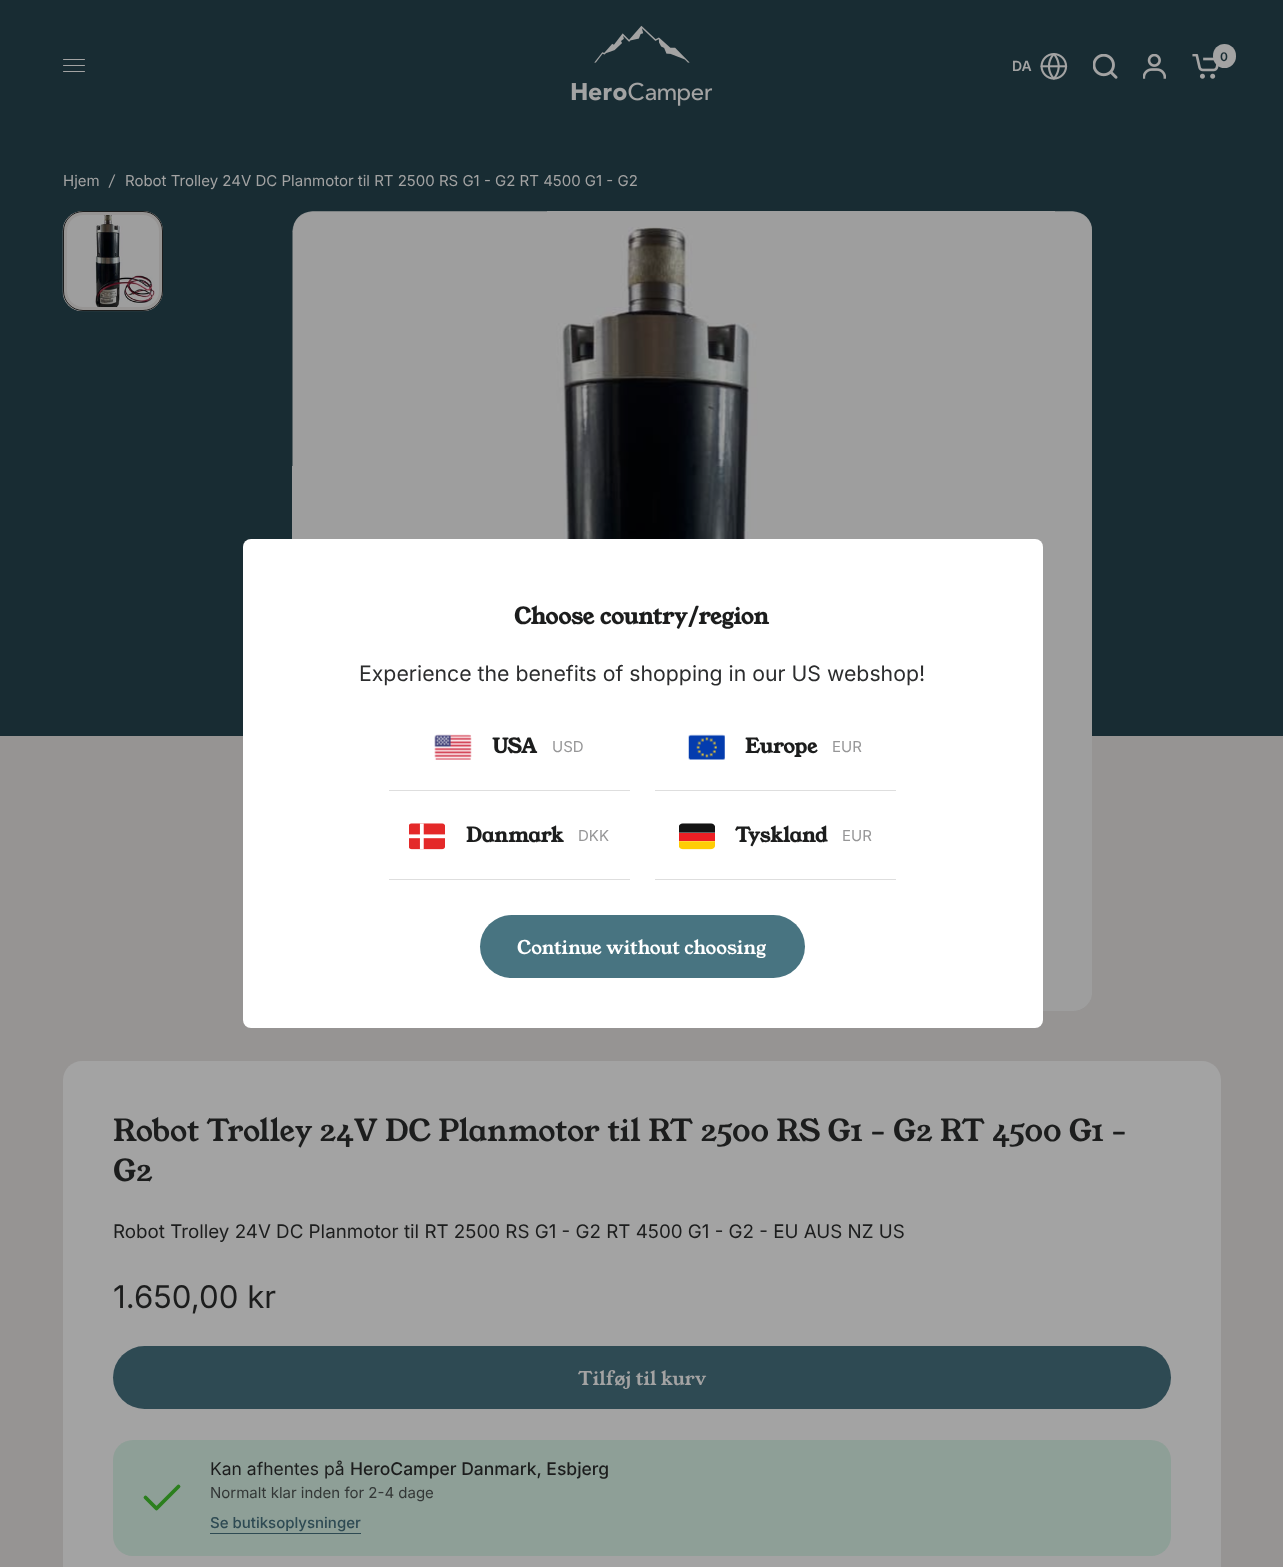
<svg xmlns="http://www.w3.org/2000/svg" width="1283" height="1567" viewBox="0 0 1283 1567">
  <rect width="100%" height="100%" fill="#969493"/>
  <path d="M0 0h1283v736H0z" fill="#182c33"/>
  <rect x="63" y="59" width="22" height="1" rx="0.5" fill="#a3a3a3"/>
  <rect x="63" y="65" width="22" height="1" rx="0.5" fill="#a3a3a3"/>
  <rect x="63" y="71" width="22" height="1" rx="0.5" fill="#a3a3a3"/>
  <image x="571" y="25" width="142" height="81" href="img/1.png"/>
  <image x="1040" y="53" width="28" height="27" href="img/2.png"/>
  <image x="1093" y="54" width="25" height="25" href="img/3.png"/>
  <image x="1143" y="54" width="23" height="25" href="img/4.png"/>
  <image x="1192" y="54" width="27" height="25" href="img/5.png"/>
  <rect x="1213" y="44" width="23" height="24" rx="11.5" fill="#a3a3a3"/>
  <image x="62" y="211" width="101" height="101" href="img/6.png"/>
  <rect x="65" y="213" width="96" height="96" rx="18" fill="none" stroke="#969493" stroke-width="4"/>
  <rect x="63.5" y="211.5" width="99" height="99" rx="19.5" fill="none" stroke="#1c1d1d"/>
  <image x="292" y="211" width="800" height="800" href="img/7.png"/>
  <rect x="63" y="1061" width="1158" height="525" rx="19" fill="#a3a3a3"/>
  <rect x="113" y="1346" width="1058" height="63" rx="31.5" fill="#2e4a53"/>
  <rect x="113" y="1440" width="1058" height="116" rx="20" fill="#8e9f97"/>
  <path d="M178.5 1486.5L156.5 1508.5L145.5 1497.5" fill="none" stroke="#2b7f1d" stroke-width="3.8" stroke-linecap="round" stroke-linejoin="round"/>
  <path d="M210 1533h151v1H210z" fill="#2e4a53"/>
  <rect x="243" y="539" width="800" height="489" rx="8" fill="#fff"/>
  <path d="M389 790h241v1H389z" fill="#dedede"/>
  <image x="434" y="734" width="38" height="26" href="img/8.png"/>
  <path d="M655 790h241v1H655z" fill="#dedede"/>
  <image x="688" y="734" width="37" height="26" href="img/9.png"/>
  <path d="M389 879h241v1H389z" fill="#dedede"/>
  <image x="409" y="823" width="36" height="27" href="img/10.png"/>
  <path d="M655 879h241v1H655z" fill="#dedede"/>
  <image x="679" y="823" width="36" height="27" href="img/11.png"/>
  <rect x="480" y="915" width="325" height="63" rx="31.5" fill="#487481"/>
  <text x="1012" y="71" font-family="Inter" font-size="14" font-weight="600" fill="#a3a3a3">DA</text>
  <text x="1220" y="61" font-family="Inter" font-size="12" font-weight="600" fill="#182c33">0</text>
  <text x="63" y="186" font-family="Inter" font-size="15" fill="#a3a3a3">Hjem</text>
  <text x="109" y="186" font-family="Inter" font-size="15" font-style="italic" fill="#a3a3a3">/</text>
  <text x="125" y="186" font-family="Inter" font-size="15" fill="#a3a3a3">Robot Trolley 24V DC Planmotor til RT 2500 RS G1 - G2 RT 4500 G1 - G2</text>
  <g font-family="Young Serif" font-size="30" fill="#1c1d1d">
    <text x="113" y="1141">Robot Trolley 24V DC Planmotor til RT 2500 RS G1 - G2 RT 4500 G1 -</text>
    <text x="113" y="1181">G2</text>
  </g>
  <text x="113" y="1238" font-family="Inter" font-size="18.75" fill="#1c1d1d">Robot Trolley 24V DC Planmotor til RT 2500 RS G1 - G2 RT 4500 G1 - G2 - EU AUS NZ US</text>
  <text x="113" y="1308" font-family="Inter" font-size="31.25" fill="#1c1d1d">1.650,00 kr</text>
  <text x="578" y="1385" font-family="Young Serif" font-size="18.75" fill="#a3a3a3">Tilføj til kurv</text>
  <text x="210" y="1475" font-family="Inter" font-size="17.5" fill="#1c1d1d">Kan afhentes på</text>
  <text x="350" y="1475" font-family="Inter" font-size="17.5" font-weight="500" fill="#1c1d1d">HeroCamper Danmark, Esbjerg</text>
  <text x="210" y="1498" font-family="Inter" font-size="15" fill="#333736">Normalt klar inden for 2-4 dage</text>
  <text x="210" y="1528" font-family="Inter" font-size="15" font-weight="500" fill="#2e4a53">Se butiksoplysninger</text>
  <text x="514" y="624" font-family="Young Serif" font-size="22.5" font-weight="bold" fill="#1c1d1d">Choose country/region</text>
  <text x="359" y="681" font-family="Inter" font-size="21.25" fill="#2c2d2e">Experience the benefits of shopping in our US webshop!</text>
  <text x="492" y="753" font-family="Young Serif" font-size="20" font-weight="bold" fill="#1c1d1d">USA</text>
  <text x="552" y="752" font-family="Inter" font-size="15" fill="#969697">USD</text>
  <text x="745" y="753" font-family="Young Serif" font-size="20" font-weight="bold" fill="#1c1d1d">Europe</text>
  <text x="832" y="752" font-family="Inter" font-size="15" fill="#969697">EUR</text>
  <text x="466" y="842" font-family="Young Serif" font-size="20" font-weight="bold" fill="#1c1d1d">Danmark</text>
  <text x="578" y="841" font-family="Inter" font-size="15" fill="#969697">DKK</text>
  <text x="735" y="842" font-family="Young Serif" font-size="20" font-weight="bold" fill="#1c1d1d">Tyskland</text>
  <text x="842" y="841" font-family="Inter" font-size="15" fill="#969697">EUR</text>
  <text x="517" y="954" font-family="Young Serif" font-size="18.75" fill="#fff">Continue without choosing</text>
</svg>
